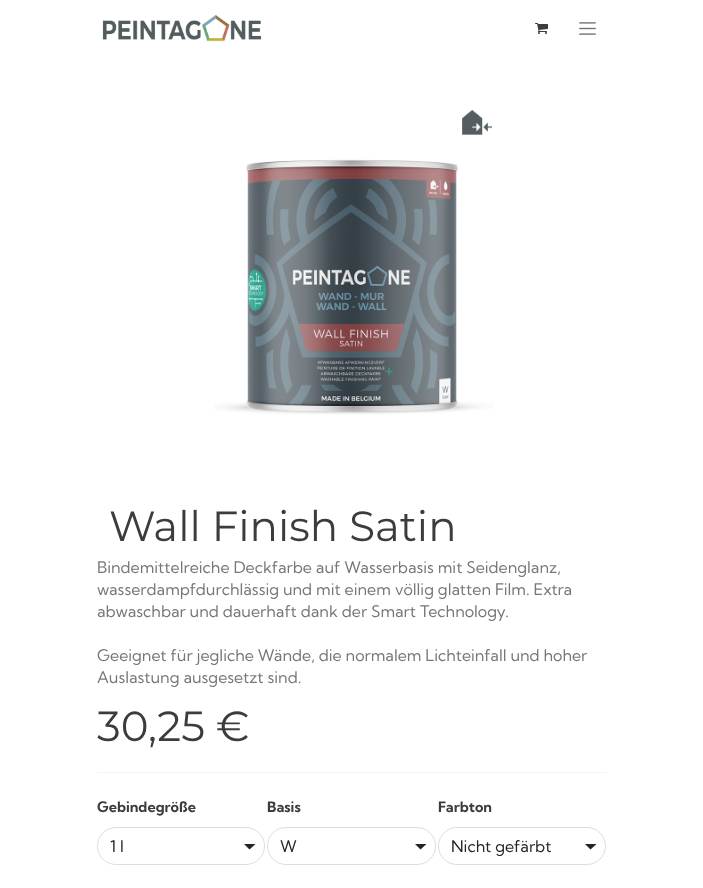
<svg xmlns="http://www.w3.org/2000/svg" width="703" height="888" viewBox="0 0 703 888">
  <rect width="100%" height="100%" fill="#fff"/>
  <image x="102" y="14" width="160" height="28" href="img/1.png"/>
  <image x="535" y="23" width="13" height="11" href="img/2.png"/>
  <image x="579" y="22" width="17" height="13" href="img/3.png"/>
  <image x="462" y="110" width="30" height="25" href="img/4.png"/>
  <image x="214" y="159" width="279" height="256" href="img/5.png"/>
  <path d="M97 772h510v1H97z" fill="#f5f4f1"/>
  <path d="M244 844H255.5L249.5 849.5Z" fill="#212529"/>
  <rect x="97.5" y="827.5" width="167" height="37" rx="18.5" fill="none" stroke="#dededf"/>
  <path d="M415 844H426.5L420.5 849.5Z" fill="#212529"/>
  <rect x="267.5" y="827.5" width="168" height="37" rx="18.5" fill="none" stroke="#dededf"/>
  <path d="M585 844H596.5L590.5 849.5Z" fill="#212529"/>
  <rect x="438.5" y="827.5" width="167" height="37" rx="18.5" fill="none" stroke="#dededf"/>
  <text x="109" y="541" font-family="Montserrat" font-size="42" fill="#3c3c3c">Wall Finish Satin</text>
  <g font-family="Kumbh Sans" font-size="16" fill="#777">
    <text x="97" y="573">Bindemittelreiche Deckfarbe auf Wasserbasis mit Seidenglanz,</text>
    <text x="97" y="595">wasserdampfdurchlässig und mit einem völlig glatten Film. Extra</text>
    <text x="97" y="617">abwaschbar und dauerhaft dank der Smart Technology.</text>
    <text x="97" y="661">Geeignet für jegliche Wände, die normalem Lichteinfall und hoher</text>
    <text x="97" y="683">Auslastung ausgesetzt sind.</text>
  </g>
  <text x="97" y="741" font-family="Montserrat" font-size="42" fill="#3c3c3c">30,25 €</text>
  <text x="97" y="812" font-family="Kumbh Sans" font-size="14.5" font-weight="bold" fill="#3c3c3c">Gebindegröße</text>
  <text x="110" y="852" font-family="Kumbh Sans" font-size="16" fill="#212529">1 l</text>
  <text x="267" y="812" font-family="Kumbh Sans" font-size="14.5" font-weight="bold" fill="#3c3c3c">Basis</text>
  <text x="280" y="852" font-family="Kumbh Sans" font-size="16" fill="#212529">W</text>
  <text x="438" y="812" font-family="Kumbh Sans" font-size="14.5" font-weight="bold" fill="#3c3c3c">Farbton</text>
  <text x="451" y="852" font-family="Kumbh Sans" font-size="16" fill="#212529">Nicht gefärbt</text>
</svg>
